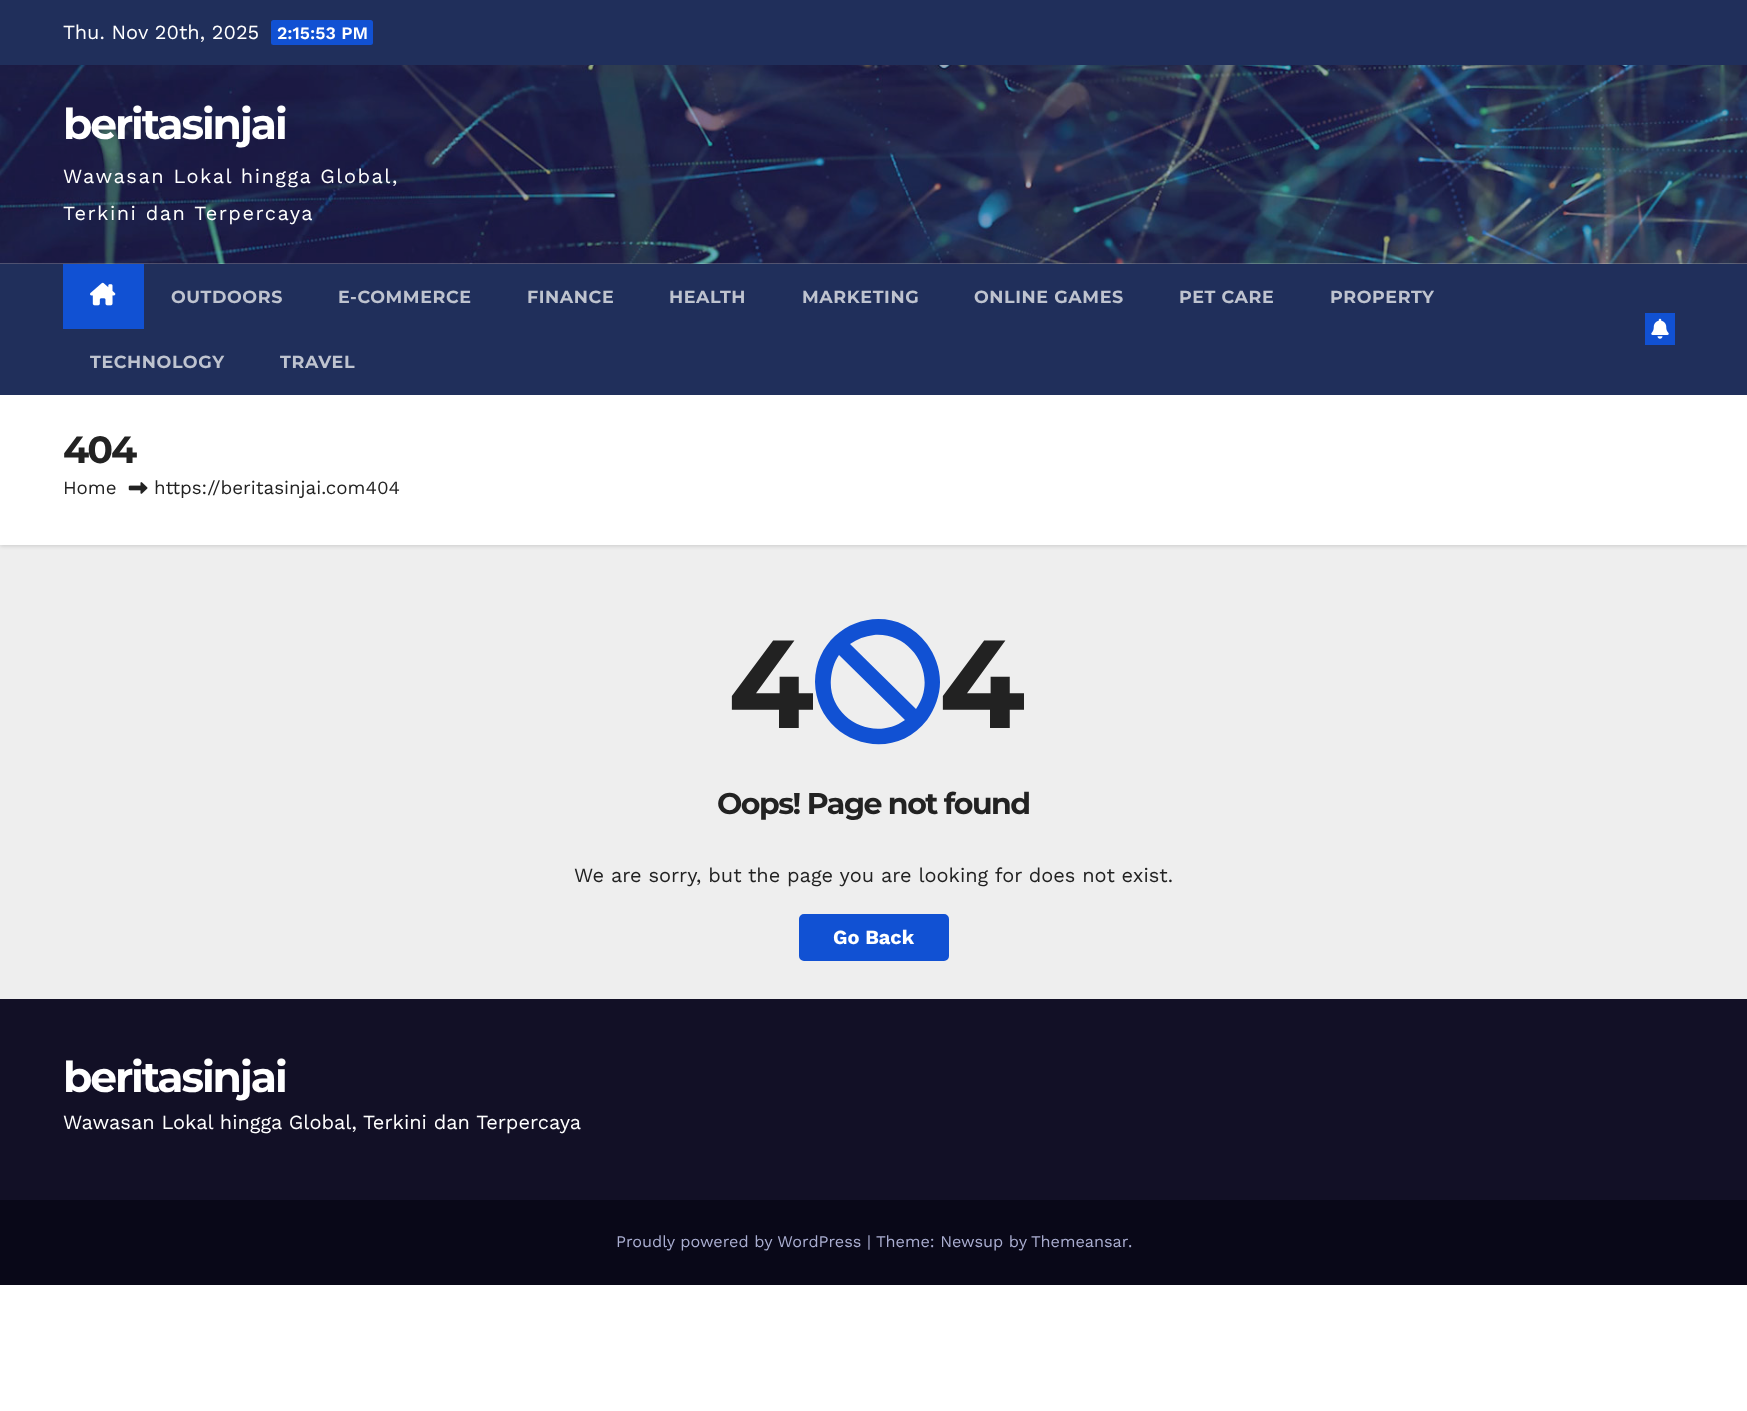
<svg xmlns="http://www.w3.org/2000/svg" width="1747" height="1411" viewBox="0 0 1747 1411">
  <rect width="100%" height="100%" fill="#fff"/>
  <path d="M0 263h1747v736H0z" fill="#eee"/>
  <path d="M0 0h1747v65H0z" fill="#202f5b"/>
  <rect x="271" y="20" width="102" height="25" rx="2.5" fill="#1151d3"/>
  <image x="0" y="65" width="1747" height="199" href="img/1.png"/>
  <path d="M0 396h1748v150H0z" fill="#00000026" filter="blur(2px)"/>
  <path d="M0 264h1747v131H0z" fill="#202f5b"/>
  <path d="M63 264h81v65H63z" fill="#1151d3"/>
  <image x="90" y="282" width="26" height="24" href="img/2.png"/>
  <path d="M1645 313h30v32H1645z" fill="#1151d3"/>
  <image x="1651" y="318" width="18" height="21" href="img/3.png"/>
  <path d="M0 395h1747v150H0z" fill="#fff"/>
  <image x="128" y="482" width="20" height="12" href="img/4.png"/>
  <path d="M905 720L839 655C834 662 832 670 831 678C827 718 873 743 905 720ZM916 709C939 677 913 632 874 635C865 636 857 639 850 644ZM815 682C816 622 891 596 927 644C935 655 940 668 940 682C940 695 935 709 927 720C891 767 816 741 815 682Z" fill="#1151d3"/>
  <rect x="800.5" y="915.5" width="147" height="44" rx="3.5" fill="#1151d3" stroke="#1151d3" stroke-width="3"/>
  <path d="M0 999h1747v201H0z" fill="#121026"/>
  <path d="M0 1200h1747v85H0z" fill="#090818"/>
  <text x="63" y="39" font-family="Work Sans" font-size="20" fill="#fff">Thu. Nov 20th, 2025</text>
  <text x="277" y="39" font-family="Work Sans" font-size="17.5" font-weight="600" fill="#fff">2:15:53 PM</text>
  <text x="63" y="139" font-family="Montserrat" font-size="42.5" font-weight="bold" letter-spacing="-2.1" fill="#fff">beritasinjai</text>
  <g font-family="Work Sans" font-size="20" letter-spacing="1.5" fill="#fff">
    <text x="63" y="183">Wawasan Lokal hingga Global,</text>
    <text x="63" y="220">Terkini dan Terpercaya</text>
  </g>
  <g font-family="Montserrat" font-size="17.5" font-weight="bold" letter-spacing="0.6" fill="#bec3cf">
    <text x="171" y="303">OUTDOORS</text>
    <text x="338" y="303">E-COMMERCE</text>
    <text x="527" y="303">FINANCE</text>
    <text x="669" y="303">HEALTH</text>
    <text x="802" y="303">MARKETING</text>
    <text x="974" y="303">ONLINE GAMES</text>
    <text x="1179" y="303">PET CARE</text>
    <text x="1330" y="303">PROPERTY</text>
    <text x="90" y="368">TECHNOLOGY</text>
    <text x="280" y="368">TRAVEL</text>
  </g>
  <text x="63" y="463" font-family="Montserrat" font-size="38" font-weight="bold" letter-spacing="-2" fill="#222">404</text>
  <g font-family="Work Sans" font-size="18.75" fill="#222">
    <text x="63" y="494">Home</text>
    <text x="154" y="494">https://beritasinjai.com404</text>
  </g>
  <g font-family="Montserrat" font-size="125" font-weight="bold" letter-spacing="-6" fill="#222">
    <text x="728" y="728">4</text>
    <text x="939" y="728">4</text>
  </g>
  <text x="717" y="814" font-family="Montserrat" font-size="30" font-weight="bold" letter-spacing="-1.5" fill="#222">Oops! Page not found</text>
  <text x="574" y="882" font-family="Work Sans" font-size="20" fill="#222">We are sorry, but the page you are looking for does not exist.</text>
  <text x="833" y="944" font-family="Work Sans" font-size="20" font-weight="bold" fill="#fff">Go Back</text>
  <text x="63" y="1092" font-family="Montserrat" font-size="42.5" font-weight="bold" letter-spacing="-2.1" fill="#fff">beritasinjai</text>
  <text x="63" y="1129" font-family="Work Sans" font-size="20" fill="#fff">Wawasan Lokal hingga Global, Terkini dan Terpercaya</text>
  <g font-family="Work Sans" font-size="16.25" fill="#aaaed1">
    <text x="616" y="1247">Proudly powered by WordPress |</text>
    <text x="876" y="1247">Theme: Newsup by</text>
    <text x="1031" y="1247">Themeansar</text>
    <text x="1128" y="1247">.</text>
  </g>
</svg>
